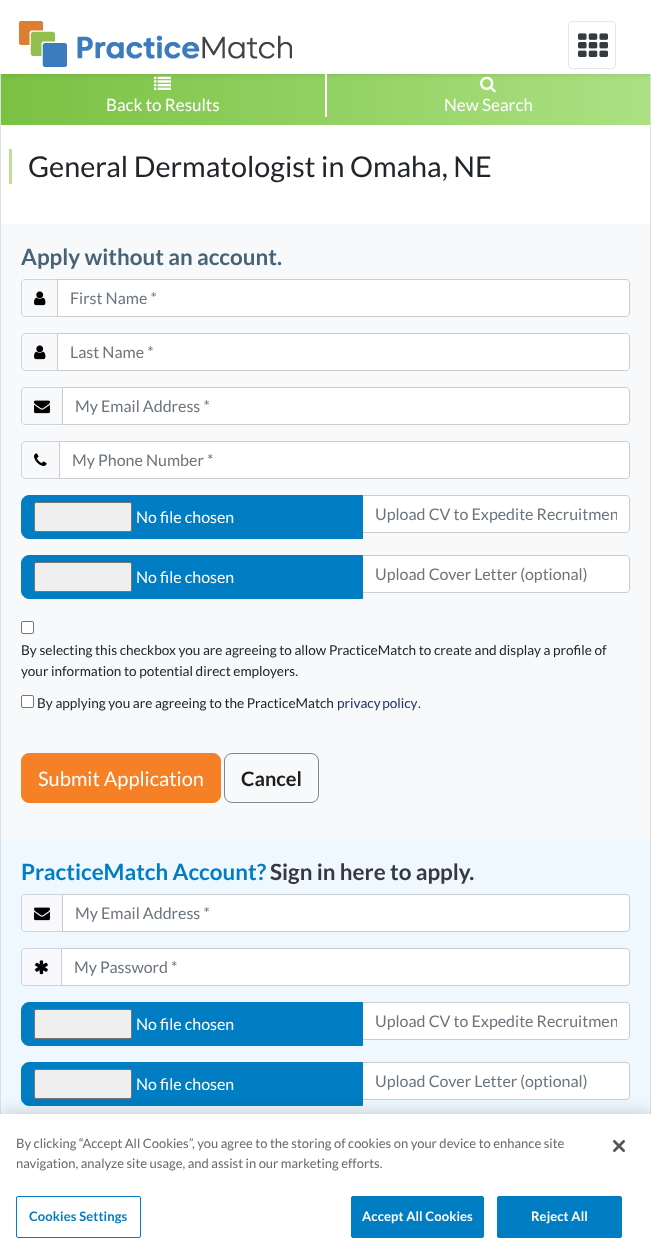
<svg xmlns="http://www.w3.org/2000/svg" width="651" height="1257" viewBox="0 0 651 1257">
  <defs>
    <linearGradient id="g1" gradientUnits="userSpaceOnUse" x1="650" y1="94" x2="1" y2="94"><stop offset="0" stop-color="#ace183"/><stop offset="1" stop-color="#7ac143"/></linearGradient>
    <clipPath id="clip1"><path d="M375 504h242v19H375z"/></clipPath>
    <clipPath id="clip2"><path d="M375 1011h242v19H375z"/></clipPath>
  </defs>
  <rect width="100%" height="100%" fill="#fff"/>
  <path d="M0.5 62.5h650v1166H0.5z" fill="none" stroke="#dfdfdf"/>
  <path d="M1 74h649v51H1z" fill="url(#g1)"/>
  <path d="M325 67h2v50H325z" fill="#fff"/>
  <image x="154" y="76" width="17" height="14" href="img/3.png"/>
  <image x="480" y="76" width="16" height="17" href="img/4.png"/>
  <path d="M0 2h651v74H0z" fill="#00000012" filter="blur(2px)"/>
  <path d="M0 0h651v74H0z" fill="#fff"/>
  <image x="19" y="21" width="273" height="46" href="img/1.png"/>
  <rect x="568.5" y="21.5" width="47" height="47" rx="3.5" fill="none" stroke="#e6e6e6"/>
  <image x="578" y="33" width="30" height="24" href="img/2.png"/>
  <path d="M9 149h3v35H9z" fill="#bde095"/>
  <path d="M1 224h649v615H1z" fill="#f8f9fa"/>
  <path d="M25 279.5H57.5V316.5H25C23 316.5 21.5 315 21.5 313V283C21.5 281 23 279.5 25 279.5Z" fill="none" stroke="#ced4da"/>
  <image x="34" y="291" width="12" height="15" href="img/5.png"/>
  <path d="M57.5 279.5H626C628 279.5 629.5 281 629.5 283V313C629.5 315 628 316.5 626 316.5H57.5Z" fill="#fff" stroke="#ccc"/>
  <path d="M25 333.5H57.5V370.5H25C23 370.5 21.5 369 21.5 367V337C21.5 335 23 333.5 25 333.5Z" fill="none" stroke="#ced4da"/>
  <image x="34" y="345" width="12" height="15" href="img/5.png"/>
  <path d="M57.5 333.5H626C628 333.5 629.5 335 629.5 337V367C629.5 369 628 370.5 626 370.5H57.5Z" fill="#fff" stroke="#ccc"/>
  <path d="M25 387.5H62.5V424.5H25C23 424.5 21.5 423 21.5 421V391C21.5 389 23 387.5 25 387.5Z" fill="none" stroke="#ced4da"/>
  <image x="34" y="400" width="16" height="14" href="img/6.png"/>
  <path d="M62.5 387.5H626C628 387.5 629.5 389 629.5 391V421C629.5 423 628 424.5 626 424.5H62.5Z" fill="#fff" stroke="#ccc"/>
  <path d="M25 441.5H59.5V478.5H25C23 478.5 21.5 477 21.5 475V445C21.5 443 23 441.5 25 441.5Z" fill="none" stroke="#ced4da"/>
  <image x="34" y="453" width="13" height="13" href="img/7.png"/>
  <path d="M59.5 441.5H626C628 441.5 629.5 443 629.5 445V475C629.5 477 628 478.5 626 478.5H59.5Z" fill="#fff" stroke="#ccc"/>
  <path d="M362.5 495.5H626C628 495.5 629.5 497 629.5 499V529C629.5 531 628 532.5 626 532.5H362.5Z" fill="#fff" stroke="#ccc"/>
  <path d="M29 495.5H362.5V538.5H29C25 538.5 21.5 535 21.5 531V503C21.5 499 25 495.5 29 495.5Z" fill="#007dc3" stroke="#007dc3"/>
  <rect x="34.5" y="502.5" width="97" height="29" rx="1.5" fill="#efefef" stroke="#767676"/>
  <path d="M362.5 555.5H626C628 555.5 629.5 557 629.5 559V589C629.5 591 628 592.5 626 592.5H362.5Z" fill="#fff" stroke="#ccc"/>
  <path d="M29 555.5H362.5V598.5H29C25 598.5 21.5 595 21.5 591V563C21.5 559 25 555.5 29 555.5Z" fill="#007dc3" stroke="#007dc3"/>
  <rect x="34.5" y="562.5" width="97" height="29" rx="1.5" fill="#efefef" stroke="#767676"/>
  <rect x="21.5" y="621.5" width="12" height="12" rx="1.5" fill="#fff" stroke="#767676"/>
  <rect x="21.5" y="695.5" width="12" height="12" rx="1.5" fill="#fff" stroke="#767676"/>
  <rect x="21.5" y="753.5" width="199" height="49" rx="7.5" fill="#f58025" stroke="#f58025"/>
  <rect x="224.5" y="753.5" width="94" height="49" rx="7.5" fill="none" stroke="#858585"/>
  <path d="M1 839h649v275H1z" fill="#f0f8ff"/>
  <path d="M25 894.5H62.5V931.5H25C23 931.5 21.5 930 21.5 928V898C21.5 896 23 894.5 25 894.5Z" fill="#f7f9fc" stroke="#ced4da"/>
  <image x="34" y="907" width="16" height="14" href="img/6.png"/>
  <path d="M62 894H626C628 894 630 896 630 898V928C630 930 628 932 626 932H62Z" fill="#fff"/>
  <path d="M62.5 894.5H626C628 894.5 629.5 896 629.5 898V928C629.5 930 628 931.5 626 931.5H62.5Z" fill="none" stroke="#00000033"/>
  <path d="M25 948.5H61.5V985.5H25C23 985.5 21.5 984 21.5 982V952C21.5 950 23 948.5 25 948.5Z" fill="#f7f9fc" stroke="#ced4da"/>
  <image x="35" y="960" width="13" height="15" href="img/8.png"/>
  <path d="M61 948H626C628 948 630 950 630 952V982C630 984 628 986 626 986H61Z" fill="#fff"/>
  <path d="M61.5 948.5H626C628 948.5 629.5 950 629.5 952V982C629.5 984 628 985.5 626 985.5H61.5Z" fill="none" stroke="#00000033"/>
  <path d="M362 1002H626C628 1002 630 1004 630 1006V1036C630 1038 628 1040 626 1040H362Z" fill="#fff"/>
  <path d="M362.5 1002.5H626C628 1002.5 629.5 1004 629.5 1006V1036C629.5 1038 628 1039.5 626 1039.5H362.5Z" fill="none" stroke="#00000033"/>
  <path d="M29 1002.5H362.5V1045.5H29C25 1045.5 21.5 1042 21.5 1038V1010C21.5 1006 25 1002.5 29 1002.5Z" fill="#007dc3" stroke="#007dc3"/>
  <rect x="34.5" y="1009.5" width="97" height="29" rx="1.5" fill="#efefef" stroke="#767676"/>
  <path d="M362 1062H626C628 1062 630 1064 630 1066V1096C630 1098 628 1100 626 1100H362Z" fill="#fff"/>
  <path d="M362.5 1062.5H626C628 1062.5 629.5 1064 629.5 1066V1096C629.5 1098 628 1099.5 626 1099.5H362.5Z" fill="none" stroke="#00000033"/>
  <path d="M29 1062.5H362.5V1105.5H29C25 1105.5 21.5 1102 21.5 1098V1070C21.5 1066 25 1062.5 29 1062.5Z" fill="#007dc3" stroke="#007dc3"/>
  <rect x="34.5" y="1069.5" width="97" height="29" rx="1.5" fill="#efefef" stroke="#767676"/>
  <path d="M0 1114h651v143H0z" fill="#00000033" filter="blur(9px)"/>
  <path d="M0 1114h651v143H0z" fill="#fff"/>
  <rect x="16.5" y="1196.5" width="124" height="41" rx="1.5" fill="none" stroke="#007dc3"/>
  <rect x="351.5" y="1196.5" width="132" height="41" rx="1.5" fill="#007dc3" stroke="#007dc3"/>
  <rect x="497.5" y="1196.5" width="124" height="41" rx="1.5" fill="#007dc3" stroke="#007dc3"/>
  <image x="613" y="1140" width="12" height="12" href="img/9.png"/>
  <g font-family="Lato" font-size="17" fill="#fff">
    <text x="106" y="111">Back to Results</text>
    <text x="444" y="111">New Search</text>
  </g>
  <text x="28" y="177" font-family="Lato" font-size="28.75" fill="#212529">General Dermatologist in Omaha, NE</text>
  <text x="21" y="265" font-family="Lato" font-size="22.4" font-weight="bold" fill="#476477">Apply without an account.</text>
  <g font-family="Lato" font-size="16" fill="#6c757d">
    <text x="70" y="304">First Name *</text>
    <text x="70" y="358">Last Name *</text>
    <text x="75" y="412">My Email Address *</text>
    <text x="72" y="466">My Phone Number *</text>
  </g>
  <text x="136" y="523" font-family="Lato" font-size="16" fill="#fff">No file chosen</text>
  <g clip-path="url(#clip1)">
    <text x="375" y="520" font-family="Lato" font-size="16" fill="#6c757d">Upload CV to Expedite Recruitmen</text>
  </g>
  <text x="136" y="583" font-family="Lato" font-size="16" fill="#fff">No file chosen</text>
  <text x="375" y="580" font-family="Lato" font-size="16" fill="#6c757d">Upload Cover Letter (optional)</text>
  <g font-family="Lato" font-size="13.6" fill="#212529">
    <text x="21" y="655">By selecting this checkbox you are agreeing to allow PracticeMatch to create and display a profile of</text>
    <text x="21" y="676">your information to potential direct employers.</text>
    <text x="37" y="708">By applying you are agreeing to the PracticeMatch</text>
  </g>
  <text x="337" y="708" word-spacing="-1" font-family="Lato" font-size="13.6" fill="#1b316a">privacy policy</text>
  <text x="418" y="708" font-family="Lato" font-size="13.6" fill="#212529">.</text>
  <text x="38" y="786" font-family="Lato" font-size="20" fill="#fff">Submit Application</text>
  <text x="241" y="786" font-family="Lato" font-size="20" font-weight="bold" fill="#1d1d1d">Cancel</text>
  <text x="21" y="880" font-family="Lato" font-size="22.4" font-weight="bold" fill="#007dc3">PracticeMatch Account?</text>
  <text x="270" y="880" font-family="Lato" font-size="22.4" font-weight="bold" fill="#343a40">Sign in here to apply.</text>
  <g font-family="Lato" font-size="16" fill="#6c757d">
    <text x="75" y="919">My Email Address *</text>
    <text x="74" y="973">My Password *</text>
  </g>
  <text x="136" y="1030" font-family="Lato" font-size="16" fill="#fff">No file chosen</text>
  <g clip-path="url(#clip2)">
    <text x="375" y="1027" font-family="Lato" font-size="16" fill="#6c757d">Upload CV to Expedite Recruitmen</text>
  </g>
  <text x="136" y="1090" font-family="Lato" font-size="16" fill="#fff">No file chosen</text>
  <text x="375" y="1087" font-family="Lato" font-size="16" fill="#6c757d">Upload Cover Letter (optional)</text>
  <g font-family="Lato" font-size="13" fill="#696969">
    <text x="16" y="1148">By clicking “Accept All Cookies”, you agree to the storing of cookies on your device to enhance site</text>
    <text x="16" y="1168">navigation, analyze site usage, and assist in our marketing efforts.</text>
  </g>
  <text x="29" y="1221" font-family="Lato" font-size="13" font-weight="bold" letter-spacing="0.1" fill="#007dc3">Cookies Settings</text>
  <g font-family="Lato" font-size="13" font-weight="bold" letter-spacing="0.1" fill="#fff">
    <text x="362" y="1221">Accept All Cookies</text>
    <text x="531" y="1221">Reject All</text>
  </g>
</svg>
